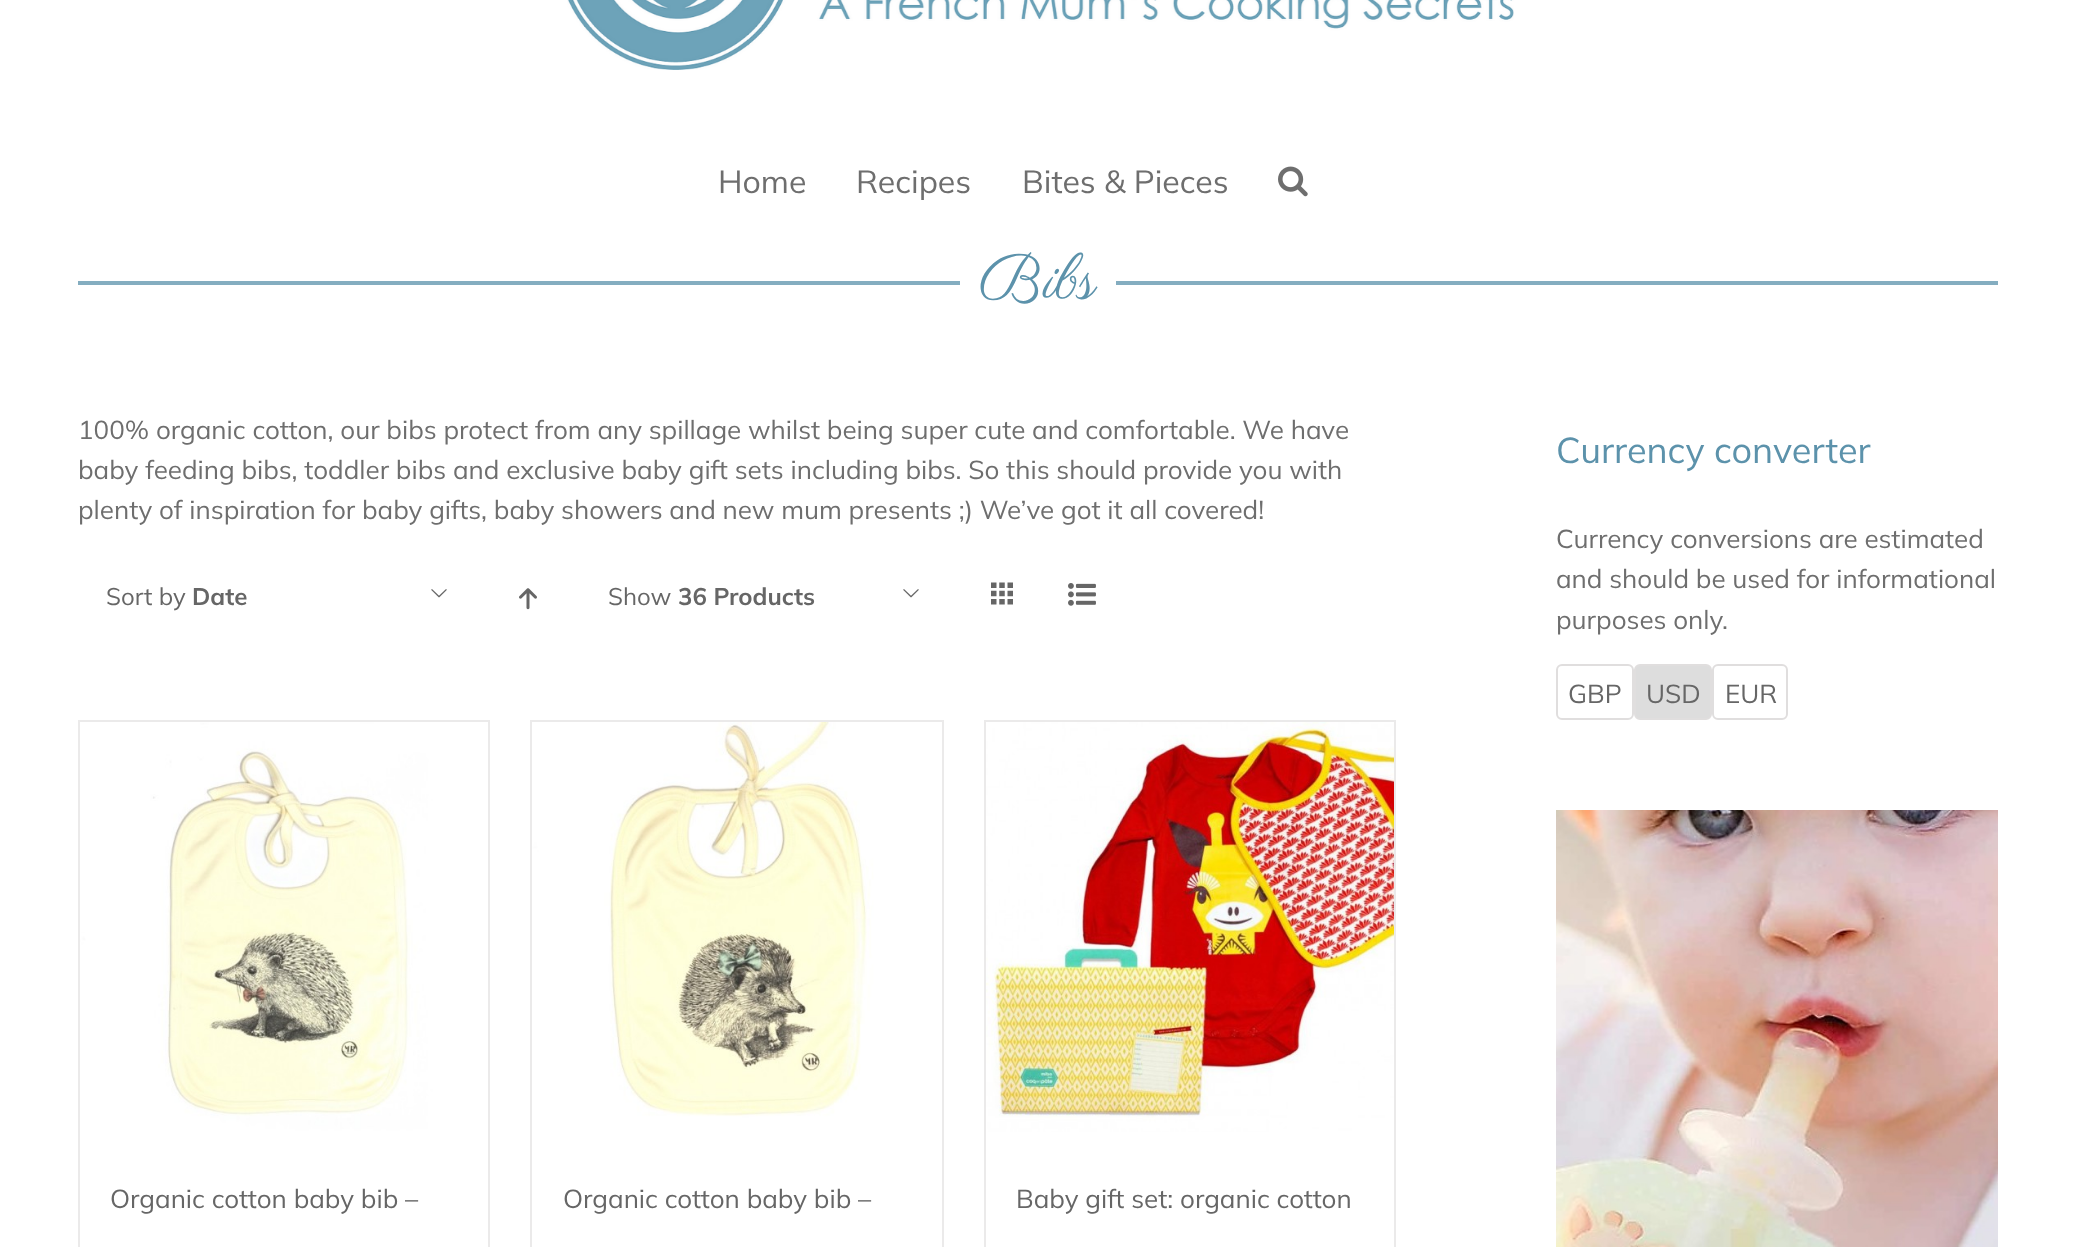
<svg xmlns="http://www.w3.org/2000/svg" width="2075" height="1247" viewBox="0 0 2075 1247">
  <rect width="100%" height="100%" fill="#fff"/>
  <image x="567" y="0" width="947" height="70" href="img/1.png"/>
  <image x="1278" y="166" width="30" height="31" href="img/2.png"/>
  <path d="M78 281h1920v4H78z" fill="#84adc0"/>
  <path d="M960 281h156v4H960z" fill="#fff"/>
  <image x="431" y="589" width="16" height="9" href="img/3.png"/>
  <image x="519" y="588" width="18" height="22" href="img/4.png"/>
  <image x="903" y="589" width="16" height="9" href="img/3.png"/>
  <image x="991" y="582" width="22" height="23" href="img/5.png"/>
  <image x="1068" y="583" width="28" height="23" href="img/6.png"/>
  <path d="M78 720h412v2H78z" fill="#ebeaea"/>
  <path d="M488 720h2v527H488z" fill="#ebeaea"/>
  <path d="M78 720h2v527H78z" fill="#ebeaea"/>
  <image x="80" y="722" width="408" height="410" href="img/7.png"/>
  <path d="M530 720h414v2H530z" fill="#ebeaea"/>
  <path d="M942 720h2v527H942z" fill="#ebeaea"/>
  <path d="M530 720h2v527H530z" fill="#ebeaea"/>
  <image x="532" y="722" width="410" height="410" href="img/8.png"/>
  <path d="M984 720h412v2H984z" fill="#ebeaea"/>
  <path d="M1394 720h2v527H1394z" fill="#ebeaea"/>
  <path d="M984 720h2v527H984z" fill="#ebeaea"/>
  <image x="986" y="722" width="408" height="410" href="img/9.png"/>
  <rect x="1557" y="665" width="76" height="54" rx="5" fill="none" stroke="#e0dede" stroke-width="2"/>
  <rect x="1635" y="665" width="76" height="54" rx="5" fill="#ddd" stroke="#e0dede" stroke-width="2"/>
  <rect x="1713" y="665" width="74" height="54" rx="5" fill="none" stroke="#e0dede" stroke-width="2"/>
  <image x="1556" y="810" width="442" height="437" href="img/10.png"/>
  <g font-family="Mulish" font-size="32" fill="#6e6e6e">
    <text x="718" y="193">Home</text>
    <text x="856" y="193">Recipes</text>
    <text x="1022" y="193">Bites &amp; Pieces</text>
  </g>
  <text x="979" y="298" font-family="Parisienne" font-size="64" fill="#5c92ab">Bibs</text>
  <g font-family="Mulish" font-size="26" fill="#6e6e6e">
    <text x="78" y="439">100% organic cotton, our bibs protect from any spillage whilst being super cute and comfortable. We have</text>
    <text x="78" y="479">baby feeding bibs, toddler bibs and exclusive baby gift sets including bibs. So this should provide you with</text>
    <text x="78" y="519">plenty of inspiration for baby gifts, baby showers and new mum presents ;) We’ve got it all covered!</text>
  </g>
  <text x="106" y="605" font-family="Mulish" font-size="24" fill="#666">Sort by</text>
  <text x="192" y="605" font-family="Mulish" font-size="24" font-weight="bold" fill="#666">Date</text>
  <text x="608" y="605" font-family="Mulish" font-size="24" fill="#666">Show</text>
  <text x="678" y="605" font-family="Mulish" font-size="24" font-weight="bold" fill="#666">36 Products</text>
  <g font-family="Mulish" font-size="26" fill="#666">
    <text x="110" y="1208">Organic cotton baby bib –</text>
    <text x="563" y="1208">Organic cotton baby bib –</text>
    <text x="1016" y="1208">Baby gift set: organic cotton</text>
  </g>
  <text x="1556" y="463" font-family="Mulish" font-size="36" fill="#5c92ab">Currency converter</text>
  <g font-family="Mulish" font-size="26" fill="#6e6e6e">
    <text x="1556" y="548">Currency conversions are estimated</text>
    <text x="1556" y="588">and should be used for informational</text>
    <text x="1556" y="629">purposes only.</text>
  </g>
  <g font-family="Mulish" font-size="26" fill="#666">
    <text x="1568" y="703">GBP</text>
    <text x="1646" y="703">USD</text>
    <text x="1725" y="703">EUR</text>
  </g>
</svg>
